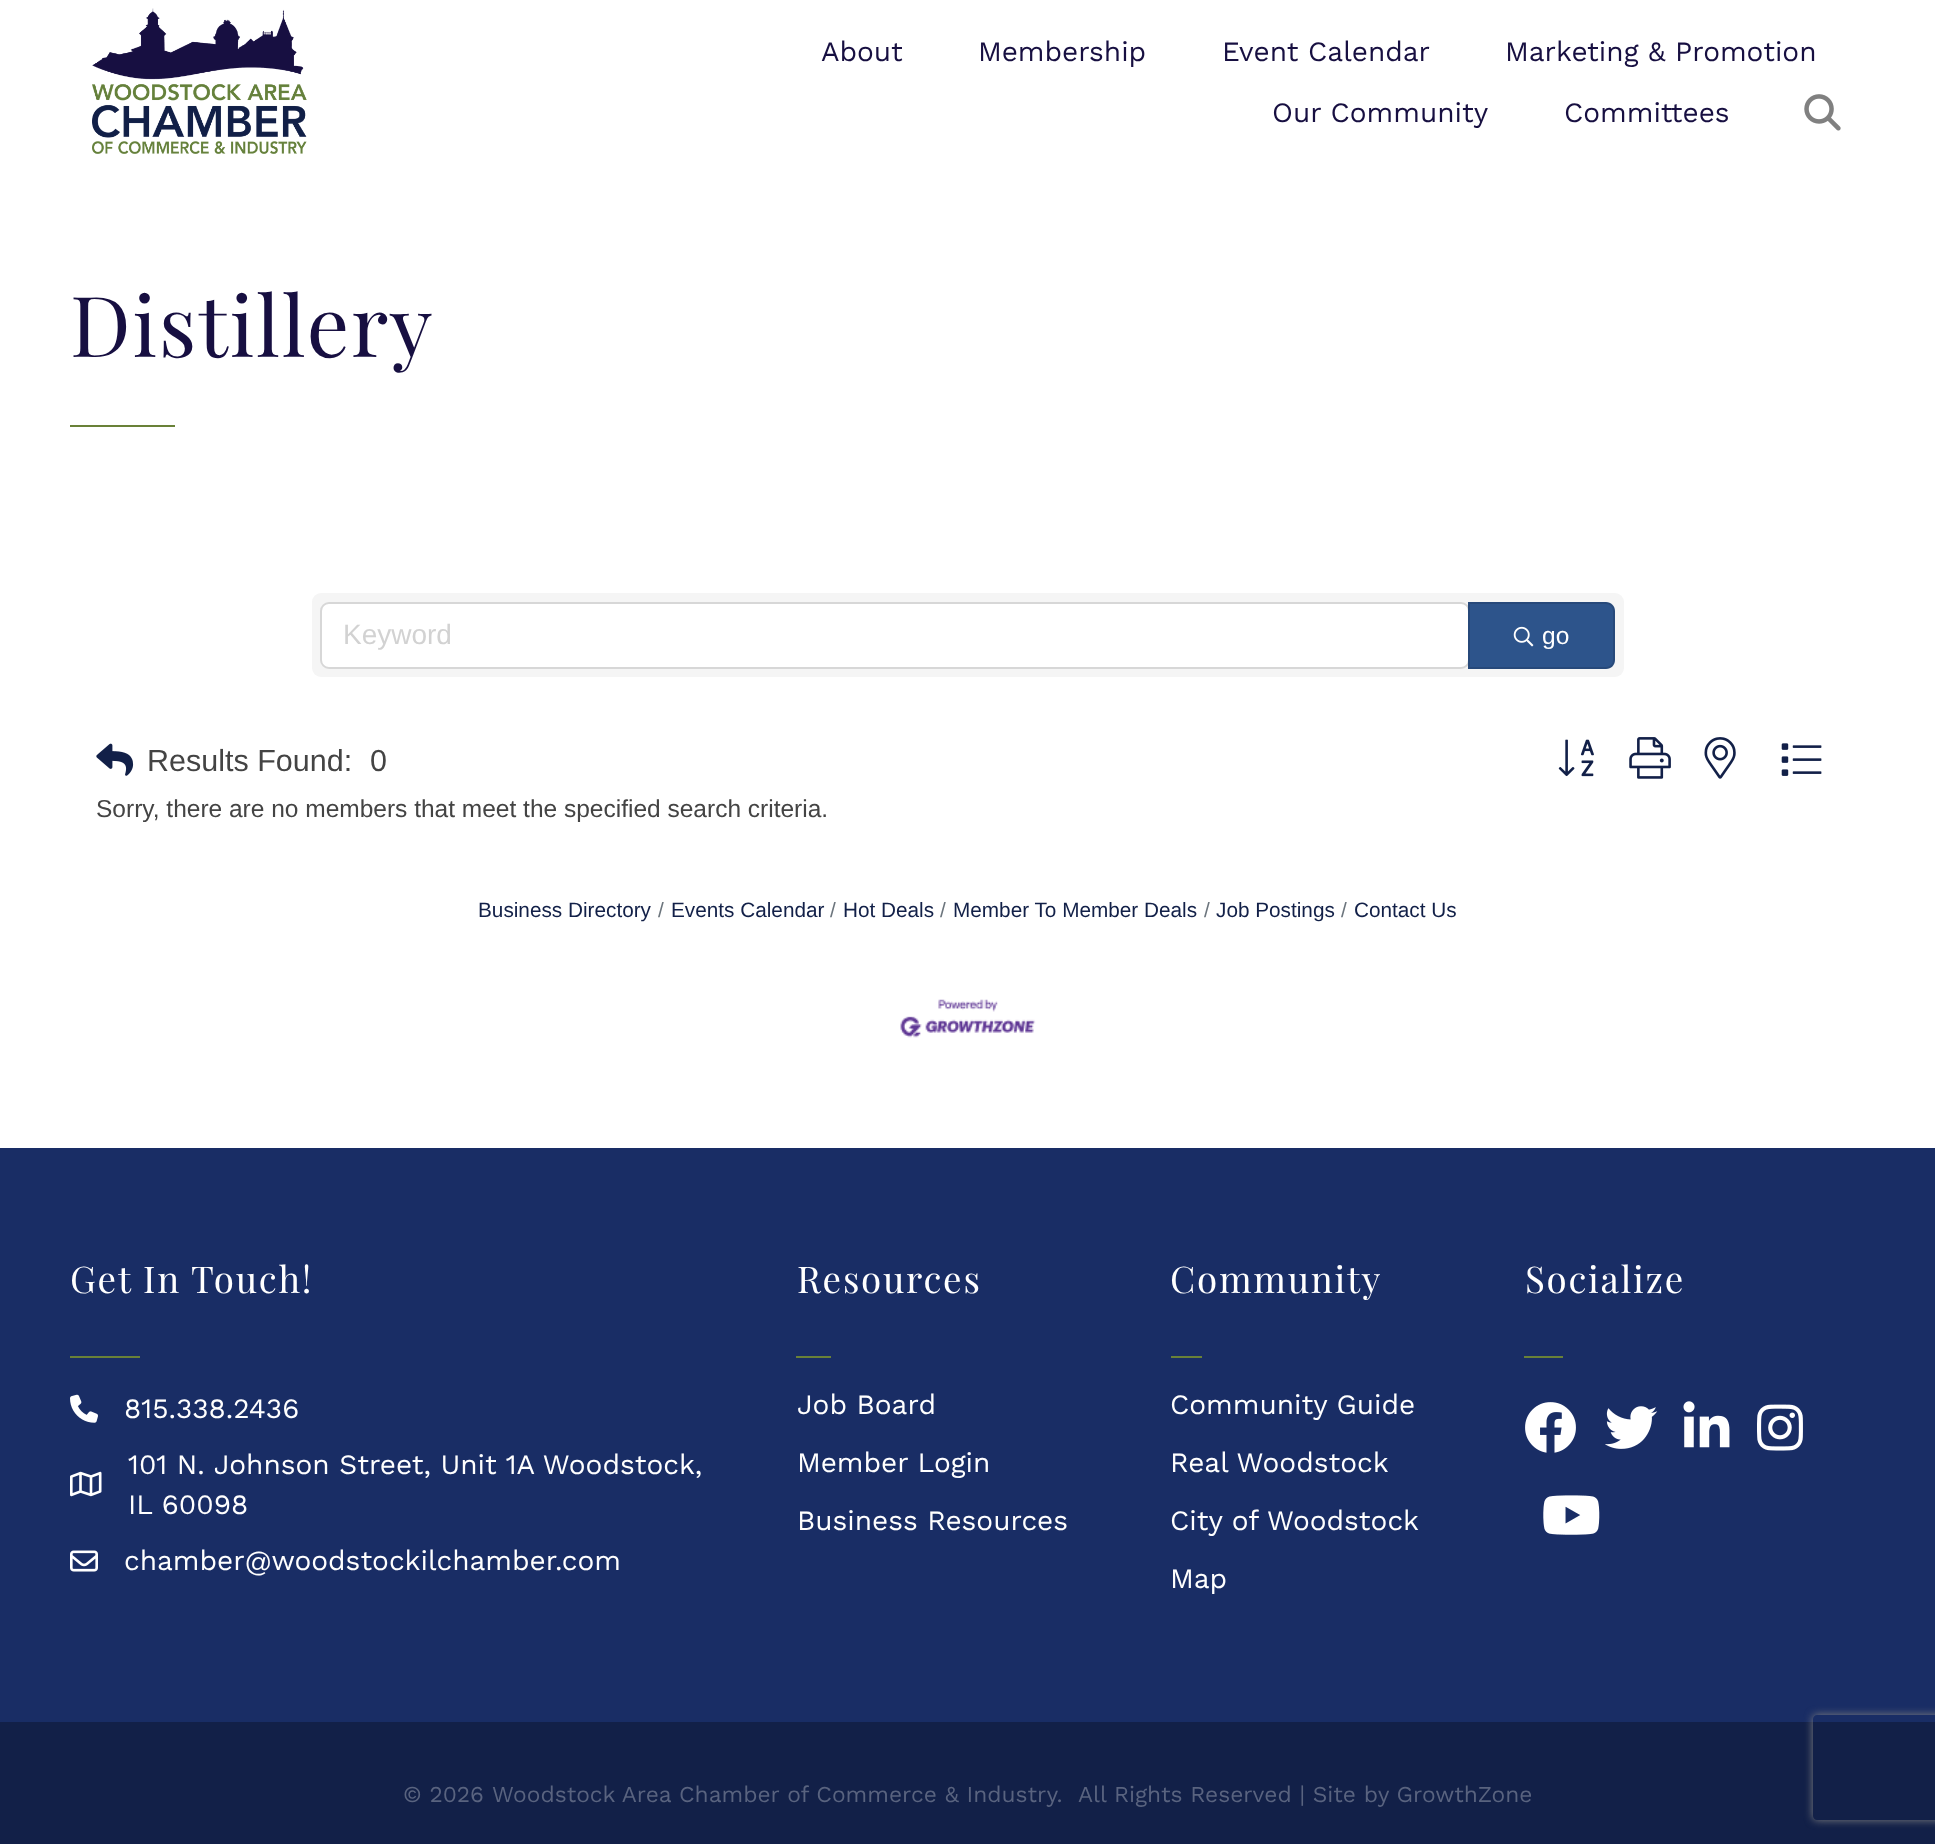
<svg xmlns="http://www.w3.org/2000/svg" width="1935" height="1844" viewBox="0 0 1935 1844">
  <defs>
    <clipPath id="clip1"><path d="M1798 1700H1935V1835H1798ZM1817 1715H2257C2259 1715 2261 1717 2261 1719V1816C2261 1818 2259 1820 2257 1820H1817C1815 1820 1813 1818 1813 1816V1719C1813 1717 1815 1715 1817 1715Z" clip-rule="evenodd"/></clipPath>
  </defs>
  <rect width="100%" height="100%" fill="#fff"/>
  <image x="92" y="8" width="215" height="146" href="img/1.png"/>
  <image x="1804" y="94" width="37" height="37" href="img/2.png"/>
  <path d="M70 425h105v2H70z" fill="#698138"/>
  <rect x="312" y="593" width="1312" height="84" rx="9" fill="#f5f5f5"/>
  <rect x="322" y="604" width="1146" height="63" rx="7" fill="#fff"/>
  <rect x="321" y="603" width="1148" height="65" rx="8" fill="none" stroke="#0000001f" stroke-width="2"/>
  <path d="M1468 602H1606C1611 602 1615 606 1615 611V660C1615 665 1611 669 1606 669H1468Z" fill="#2d548b"/>
  <path d="M1469 603H1606C1610.5 603 1614 606.5 1614 611V660C1614 664.5 1610.5 668 1606 668H1469Z" fill="none" stroke="#0000001f" stroke-width="2"/>
  <image x="1513" y="626" width="21" height="21" href="img/3.png"/>
  <image x="96" y="743" width="38" height="33" href="img/4.png"/>
  <image x="1558" y="739" width="36" height="38" href="img/5.png"/>
  <image x="1629" y="737" width="42" height="42" href="img/6.png"/>
  <image x="1704" y="737" width="32" height="42" href="img/7.png"/>
  <image x="1781" y="743" width="41" height="33" href="img/8.png"/>
  <image x="900" y="999" width="136" height="39" href="img/9.png"/>
  <path d="M0 1148h1935v574H0z" fill="#192d65"/>
  <path d="M70 1356h70v2H70z" fill="#698138"/>
  <image x="70" y="1394" width="28" height="29" href="img/10.png"/>
  <image x="70" y="1471" width="32" height="26" href="img/11.png"/>
  <image x="70" y="1550" width="28" height="22" href="img/12.png"/>
  <path d="M796 1356h35v2H796z" fill="#698138"/>
  <path d="M1171 1356h31v2H1171z" fill="#698138"/>
  <path d="M1524 1356h39v2H1524z" fill="#698138"/>
  <image x="1525" y="1402" width="51" height="51" href="img/13.png"/>
  <image x="1605" y="1406" width="53" height="43" href="img/14.png"/>
  <image x="1683" y="1401" width="47" height="47" href="img/15.png"/>
  <image x="1757" y="1404" width="46" height="47" href="img/16.png"/>
  <image x="1543" y="1495" width="57" height="40" href="img/17.png"/>
  <path d="M0 1722h1935v122H0z" fill="#122048"/>
  <g clip-path="url(#clip1)">
    <rect x="1813" y="1715" width="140" height="105" rx="4" fill="#808080" filter="blur(4.5px)"/>
  </g>
  <g font-family="Work Sans" font-size="28" fill="#170f41">
    <text x="821" y="61">About</text>
    <text x="978" y="61">Membership</text>
    <text x="1222" y="61">Event Calendar</text>
    <text x="1505" y="61">Marketing &amp; Promotion</text>
    <text x="1272" y="122">Our Community</text>
    <text x="1564" y="122">Committees</text>
  </g>
  <text x="70" y="357" font-family="Playfair Display" font-size="84" letter-spacing="1.75" fill="#170f41">Distillery</text>
  <text x="343" y="644" font-family="Liberation Sans" font-size="28" fill="#d2d2d2">Keyword</text>
  <text x="1542" y="644" font-family="Liberation Sans" font-size="24.5" fill="#fff">go</text>
  <g font-family="Liberation Sans" font-size="30.5" fill="#444">
    <text x="147" y="771">Results Found:</text>
    <text x="370" y="771">0</text>
  </g>
  <text x="96" y="817" font-family="Liberation Sans" font-size="24.5" fill="#444">Sorry, there are no members that meet the specified search criteria.</text>
  <text x="478" y="917" font-family="Liberation Sans" font-size="20.75" fill="#122048">Business Directory</text>
  <text x="658" y="917" font-family="Liberation Sans" font-size="20.75" fill="#6c757d">/</text>
  <text x="671" y="917" font-family="Liberation Sans" font-size="20.75" fill="#122048">Events Calendar</text>
  <text x="830" y="917" font-family="Liberation Sans" font-size="20.75" fill="#6c757d">/</text>
  <text x="843" y="917" font-family="Liberation Sans" font-size="20.75" fill="#122048">Hot Deals</text>
  <text x="940" y="917" font-family="Liberation Sans" font-size="20.75" fill="#6c757d">/</text>
  <text x="953" y="917" font-family="Liberation Sans" font-size="20.75" fill="#122048">Member To Member Deals</text>
  <text x="1204" y="917" font-family="Liberation Sans" font-size="20.75" fill="#6c757d">/</text>
  <text x="1216" y="917" font-family="Liberation Sans" font-size="20.75" fill="#122048">Job Postings</text>
  <text x="1341" y="917" font-family="Liberation Sans" font-size="20.75" fill="#6c757d">/</text>
  <text x="1354" y="917" font-family="Liberation Sans" font-size="20.75" fill="#122048">Contact Us</text>
  <text x="70" y="1293" font-family="Playfair Display" font-size="36.75" letter-spacing="1.75" fill="#fff">Get In Touch!</text>
  <g font-family="Work Sans" font-size="28" fill="#fff">
    <text x="124" y="1418">815.338.2436</text>
    <text x="128" y="1474">101 N. Johnson Street, Unit 1A Woodstock,</text>
    <text x="128" y="1514">IL 60098</text>
    <text x="124" y="1570">chamber@woodstockilchamber.com</text>
  </g>
  <text x="797" y="1293" font-family="Playfair Display" font-size="36.75" letter-spacing="1.75" fill="#fff">Resources</text>
  <g font-family="Work Sans" font-size="28" fill="#fff">
    <text x="797" y="1414">Job Board</text>
    <text x="797" y="1472">Member Login</text>
    <text x="797" y="1530">Business Resources</text>
  </g>
  <text x="1170" y="1293" font-family="Playfair Display" font-size="36.75" letter-spacing="1.75" fill="#fff">Community</text>
  <g font-family="Work Sans" font-size="28" fill="#fff">
    <text x="1170" y="1414">Community Guide</text>
    <text x="1170" y="1472">Real Woodstock</text>
    <text x="1170" y="1530">City of Woodstock</text>
    <text x="1170" y="1588">Map</text>
  </g>
  <text x="1525" y="1293" font-family="Playfair Display" font-size="36.75" letter-spacing="1.75" fill="#fff">Socialize</text>
  <g font-family="Work Sans" font-size="22.75" fill="#59637f">
    <text x="403" y="1802">© 2026</text>
    <text x="492" y="1802">Woodstock Area Chamber of Commerce &amp; Industry.</text>
    <text x="1078" y="1802">All Rights Reserved | Site by GrowthZone</text>
  </g>
</svg>
